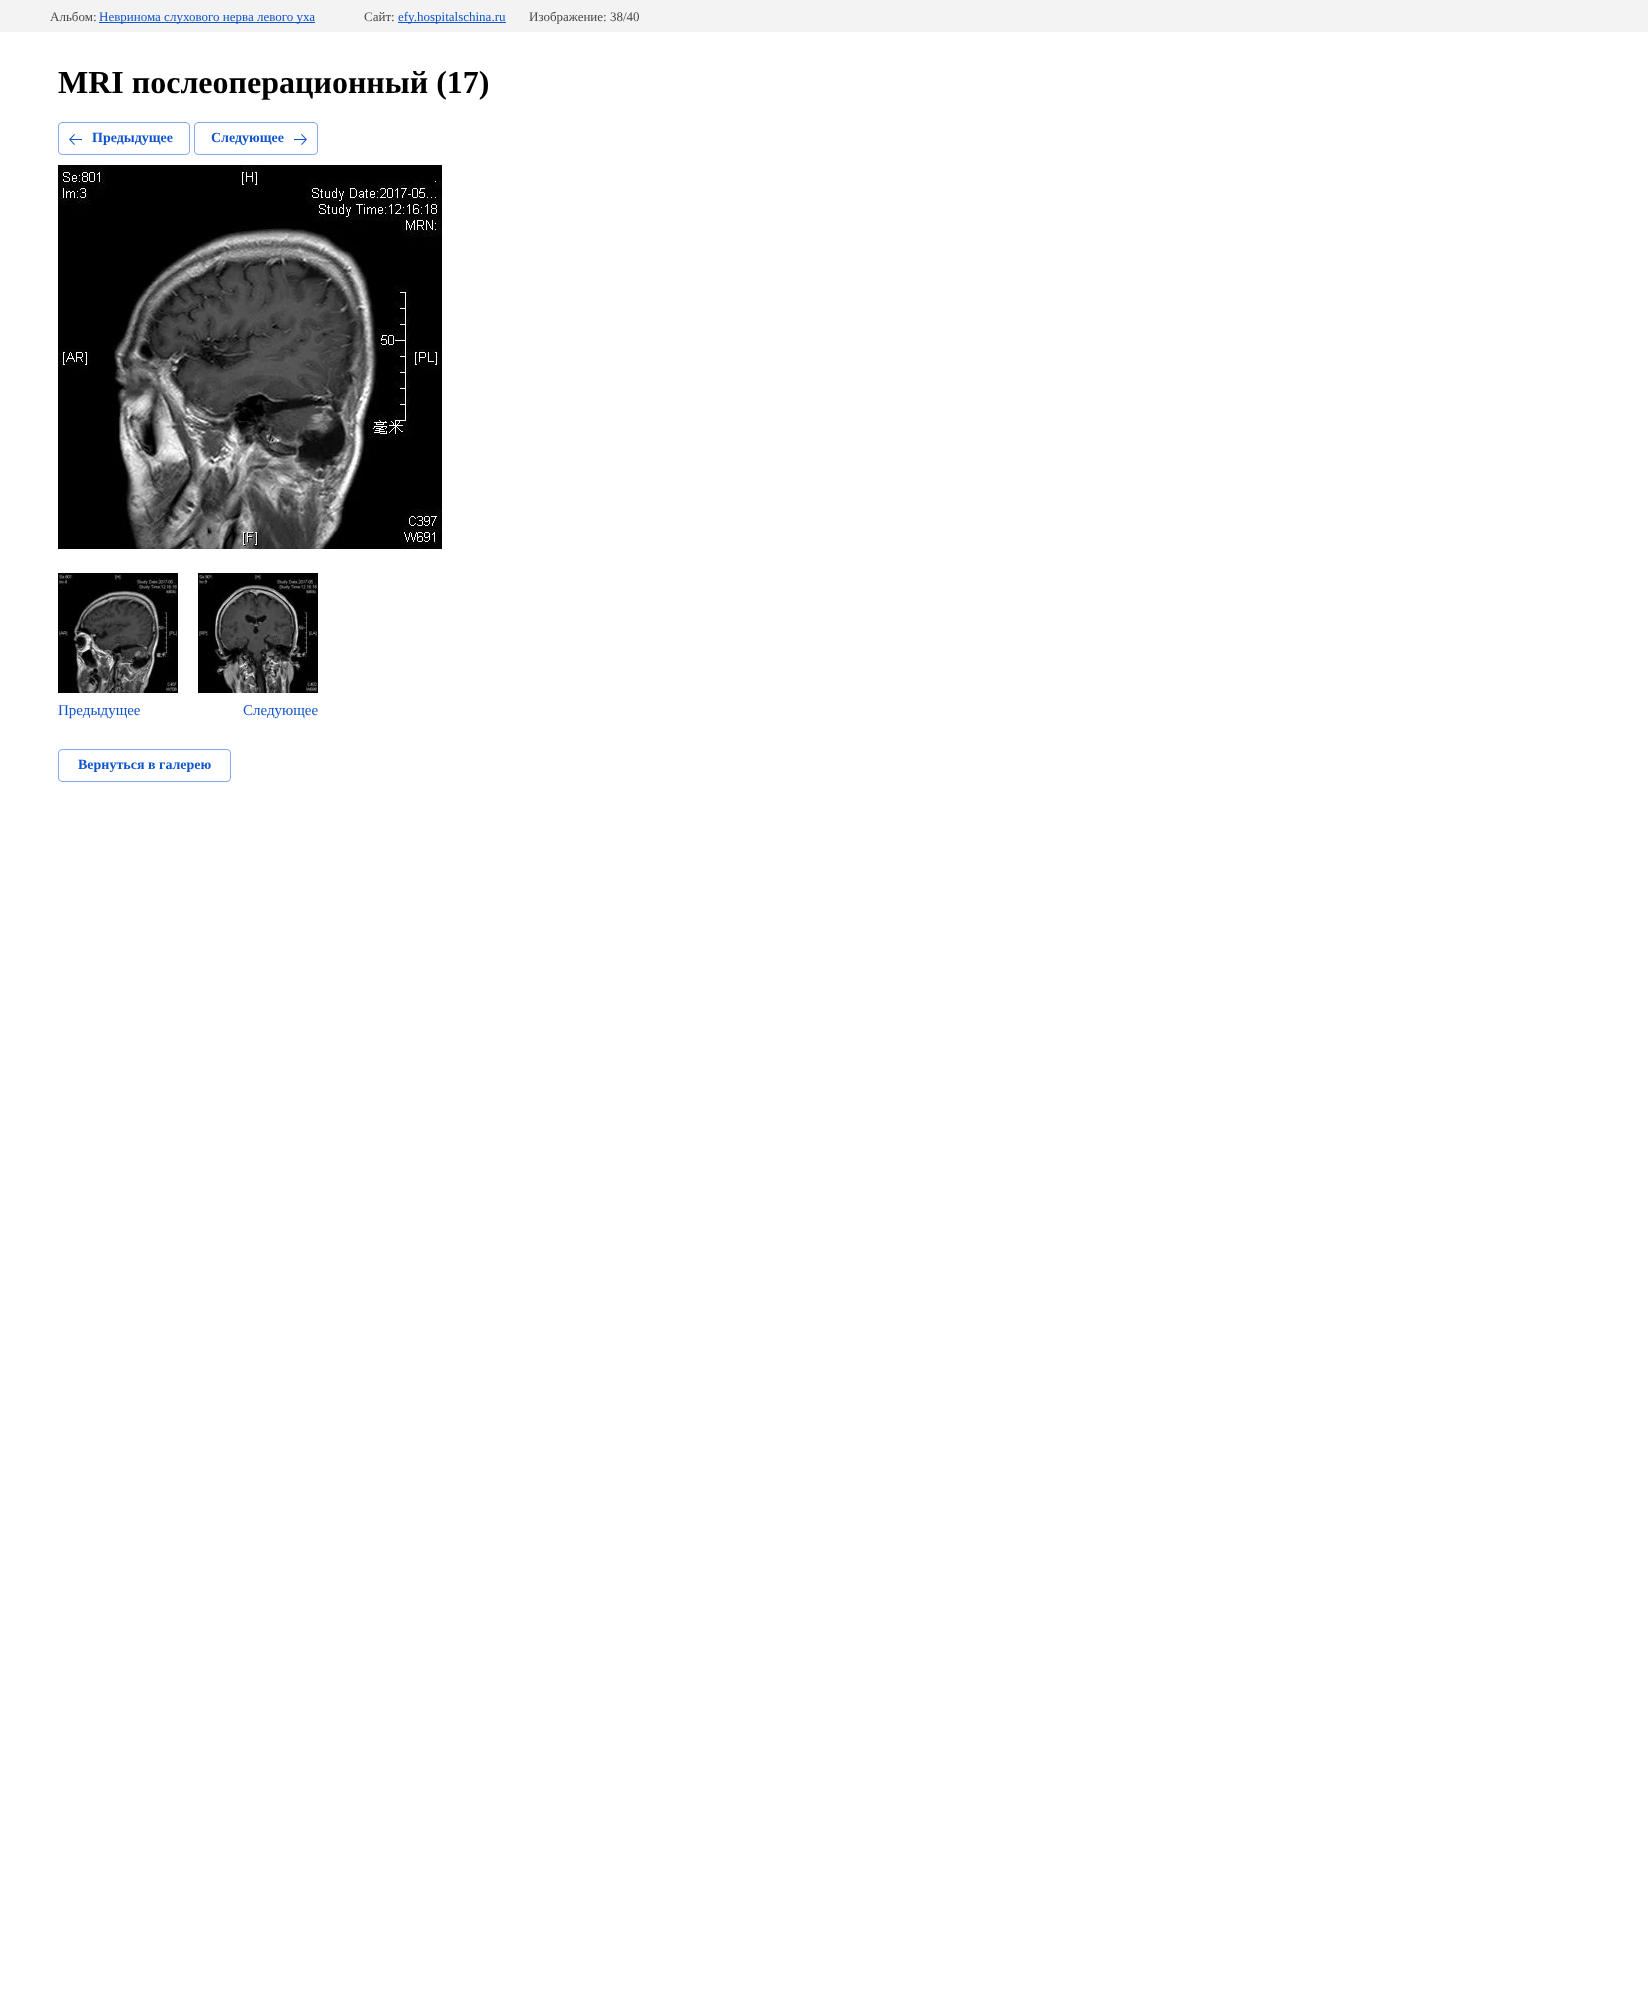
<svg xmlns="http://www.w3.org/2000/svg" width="1648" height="2005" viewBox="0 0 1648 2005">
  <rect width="100%" height="100%" fill="#fff"/>
  <path d="M0 0h1648v32H0z" fill="#f3f3f3"/>
  <path d="M99 22h216v1H99z" fill="#15c"/>
  <path d="M398 22h108v1H398z" fill="#15c"/>
  <rect x="58.5" y="122.5" width="131" height="32" rx="3.5" fill="none" stroke="#88aae6"/>
  <image x="69" y="134" width="13" height="11" href="img/1.png"/>
  <rect x="194.5" y="122.5" width="123" height="32" rx="3.5" fill="none" stroke="#88aae6"/>
  <image x="294" y="134" width="13" height="11" href="img/2.png"/>
  <image x="58" y="165" width="384" height="384" href="img/3.png"/>
  <image x="58" y="573" width="120" height="120" href="img/4.png"/>
  <image x="198" y="573" width="120" height="120" href="img/5.png"/>
  <rect x="58.5" y="749.5" width="172" height="32" rx="3.5" fill="none" stroke="#88aae6"/>
  <text x="50" y="21" font-family="Liberation Serif" font-size="13" fill="#484848">Альбом:</text>
  <text x="99" y="21" font-family="Liberation Serif" font-size="13" fill="#15c">Невринома слухового нерва левого уха</text>
  <text x="364" y="21" font-family="Liberation Serif" font-size="13" fill="#484848">Сайт:</text>
  <text x="398" y="21" font-family="Liberation Serif" font-size="13" fill="#15c">efy.hospitalschina.ru</text>
  <text x="529" y="21" font-family="Liberation Serif" font-size="13" fill="#484848">Изображение: 38/40</text>
  <text x="58" y="93" font-family="Liberation Serif" font-size="32" font-weight="bold" fill="#000">MRI послеоперационный (17)</text>
  <g font-family="Liberation Serif" font-size="14" font-weight="bold" fill="#15c">
    <text x="92" y="142">Предыдущее</text>
    <text x="211" y="142">Следующее</text>
  </g>
  <g font-family="Liberation Serif" font-size="15" fill="#15c">
    <text x="58" y="715">Предыдущее</text>
    <text x="243" y="715">Следующее</text>
  </g>
  <text x="78" y="769" font-family="Liberation Serif" font-size="14" font-weight="bold" fill="#15c">Вернуться в галерею</text>
</svg>
